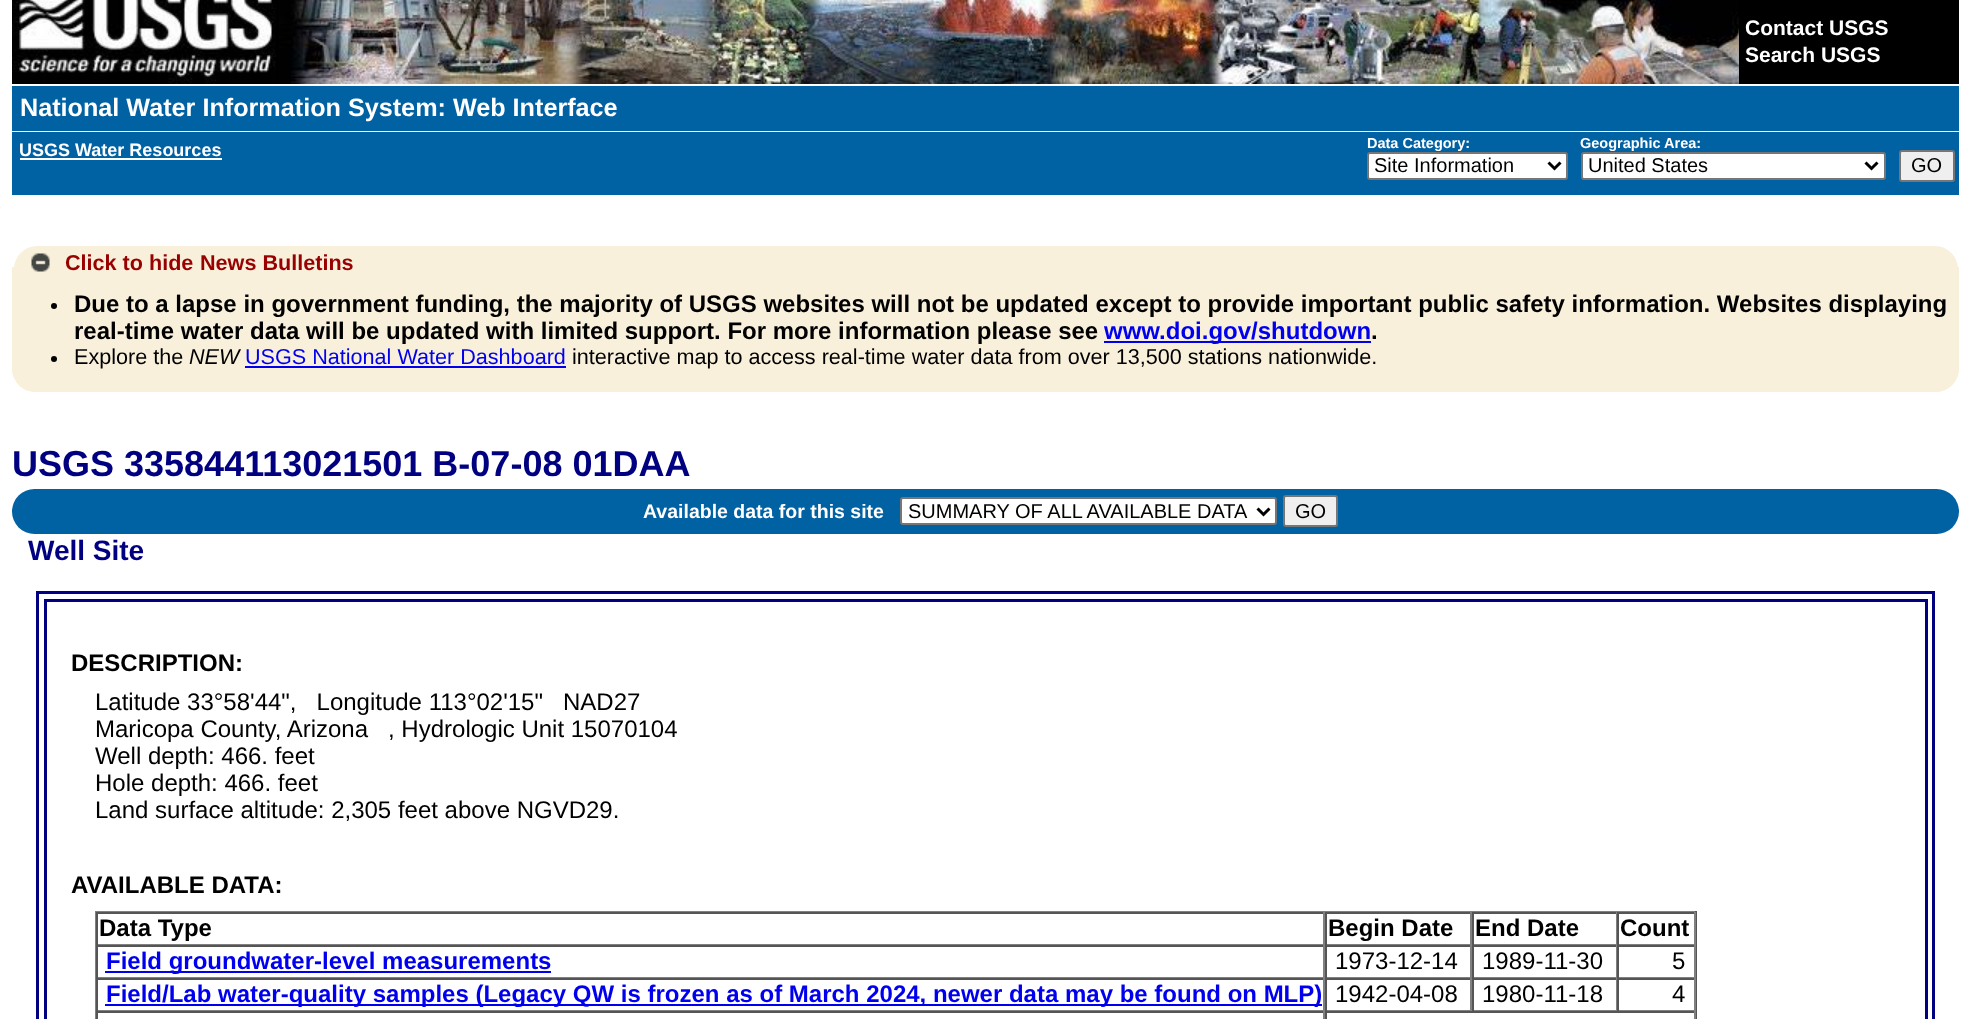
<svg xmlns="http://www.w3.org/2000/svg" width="1971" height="1019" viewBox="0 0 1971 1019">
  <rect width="100%" height="100%" fill="#fff"/>
  <path d="M276 0h3v84H276z" fill="#000"/>
  <image x="279" y="0" width="1460" height="84" href="img/1.png"/>
  <image x="12" y="0" width="264" height="84" href="img/2.png"/>
  <path d="M1739 0h220v84H1739z" fill="#000"/>
  <path d="M12 86h1947v45H12z" fill="#0061a3"/>
  <path d="M12 132h1947v63H12z" fill="#0061a3"/>
  <path d="M20 158h202v2H20z" fill="#fff"/>
  <rect x="1368" y="153" width="199" height="26" rx="2" fill="#fff" stroke="#767676" stroke-width="2"/>
  <path d="M1548.5 162.5L1554.5 168.5L1560.5 162.5" fill="none" stroke="#000" stroke-width="3"/>
  <rect x="1582" y="153" width="303" height="26" rx="2" fill="#fff" stroke="#767676" stroke-width="2"/>
  <path d="M1865.5 162.5L1871.5 168.5L1877.5 162.5" fill="none" stroke="#000" stroke-width="3"/>
  <rect x="1900" y="151" width="54" height="30" rx="2" fill="#efefef" stroke="#767676" stroke-width="2"/>
  <path d="M12 267H1959V369C1959 381.5 1948.5 392 1936 392H35C22.5 392 12 381.5 12 369Z" fill="#f8f0db"/>
  <path d="M37 246H1935C1947.5 246 1958 256.5 1958 269V279H14V269C14 256.5 24.5 246 37 246Z" fill="#f8f0db"/>
  <image x="31" y="253" width="19" height="19" href="img/3.png"/>
  <circle cx="54" cy="306" r="3" fill="#000"/>
  <path d="M1104 341h267v2H1104z" fill="#00e"/>
  <circle cx="54" cy="359" r="3" fill="#000"/>
  <path d="M245 366h321v2H245z" fill="#00e"/>
  <rect x="12" y="489" width="1947" height="45" rx="22.5" fill="#0061a3"/>
  <rect x="901" y="498" width="375" height="26" rx="2" fill="#fff" stroke="#767676" stroke-width="2"/>
  <path d="M1257.5 508.5L1263.5 514.5L1269.5 508.5" fill="none" stroke="#000" stroke-width="3"/>
  <rect x="1284" y="496" width="53" height="30" rx="2" fill="#efefef" stroke="#767676" stroke-width="2"/>
  <path d="M37.5 592.5h1896v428H37.5z" fill="none" stroke="#000080" stroke-width="3"/>
  <path d="M45.5 600.5h1881v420H45.5z" fill="none" stroke="#000080" stroke-width="3"/>
  <path d="M95 911h1602v1H95z" fill="#808080"/>
  <path d="M1695 911h2v108H1695z" fill="#555"/>
  <path d="M95 911h2v108H95z" fill="#808080"/>
  <path d="M96 912h1599v2H96z" fill="#555"/>
  <path d="M1323 912h2v33H1323z" fill="#808080"/>
  <path d="M96 944h1229v1H96z" fill="#808080"/>
  <path d="M96 912h2v33H96z" fill="#555"/>
  <path d="M1470 912h2v33H1470z" fill="#808080"/>
  <path d="M1325 944h147v1H1325z" fill="#808080"/>
  <path d="M1325 912h2v33H1325z" fill="#555"/>
  <path d="M1616 912h1v33H1616z" fill="#808080"/>
  <path d="M1472 944h145v1H1472z" fill="#808080"/>
  <path d="M1472 912h2v33H1472z" fill="#555"/>
  <path d="M1694 912h2v33H1694z" fill="#808080"/>
  <path d="M1617 944h78v1H1617z" fill="#808080"/>
  <path d="M1617 912h2v33H1617z" fill="#555"/>
  <path d="M96 945h1599v2H96z" fill="#555"/>
  <path d="M1323 945h2v33H1323z" fill="#808080"/>
  <path d="M96 977h1229v1H96z" fill="#808080"/>
  <path d="M96 945h2v33H96z" fill="#555"/>
  <path d="M105 971h446v2H105z" fill="#00e"/>
  <path d="M1470 945h2v33H1470z" fill="#808080"/>
  <path d="M1325 977h147v1H1325z" fill="#808080"/>
  <path d="M1325 945h2v33H1325z" fill="#555"/>
  <path d="M1616 945h1v33H1616z" fill="#808080"/>
  <path d="M1472 977h145v1H1472z" fill="#808080"/>
  <path d="M1472 945h2v33H1472z" fill="#555"/>
  <path d="M1694 945h2v33H1694z" fill="#808080"/>
  <path d="M1617 977h78v1H1617z" fill="#808080"/>
  <path d="M1617 945h2v33H1617z" fill="#555"/>
  <path d="M96 978h1599v2H96z" fill="#555"/>
  <path d="M1323 978h2v33H1323z" fill="#808080"/>
  <path d="M96 1010h1229v1H96z" fill="#808080"/>
  <path d="M96 978h2v33H96z" fill="#555"/>
  <path d="M105 1004h1217v2H105z" fill="#00e"/>
  <path d="M1470 978h2v33H1470z" fill="#808080"/>
  <path d="M1325 1010h147v1H1325z" fill="#808080"/>
  <path d="M1325 978h2v33H1325z" fill="#555"/>
  <path d="M1616 978h1v33H1616z" fill="#808080"/>
  <path d="M1472 1010h145v1H1472z" fill="#808080"/>
  <path d="M1472 978h2v33H1472z" fill="#555"/>
  <path d="M1694 978h2v33H1694z" fill="#808080"/>
  <path d="M1617 1010h78v1H1617z" fill="#808080"/>
  <path d="M1617 978h2v33H1617z" fill="#555"/>
  <path d="M96 1011h1599v2H96z" fill="#555"/>
  <path d="M1323 1011h2v8H1323z" fill="#808080"/>
  <path d="M96 1011h2v8H96z" fill="#555"/>
  <path d="M1694 1011h2v8H1694z" fill="#808080"/>
  <path d="M1325 1011h2v8H1325z" fill="#555"/>
  <g font-family="Liberation Sans" font-size="21" font-weight="bold" fill="#fff">
    <text x="1745" y="35">Contact USGS</text>
    <text x="1745" y="62">Search USGS</text>
  </g>
  <text x="20" y="116" font-family="Liberation Sans" font-size="25.2" font-weight="bold" fill="#fff">National Water Information System: Web Interface</text>
  <text x="19" y="156" font-family="Liberation Sans" font-size="18" font-weight="bold" fill="#fff">USGS Water Resources</text>
  <text x="1367" y="148" font-family="Liberation Sans" font-size="14.5" font-weight="bold" fill="#fff">Data Category:</text>
  <text x="1374" y="172" font-family="Liberation Sans" font-size="20" fill="#000">Site Information</text>
  <text x="1580" y="148" font-family="Liberation Sans" font-size="14.5" font-weight="bold" fill="#fff">Geographic Area:</text>
  <g font-family="Liberation Sans" font-size="20" fill="#000">
    <text x="1588" y="172">United States</text>
    <text x="1911" y="172">GO</text>
  </g>
  <g font-family="Liberation Sans" font-size="21.6" font-weight="bold" fill="#900">
    <text x="65" y="270">Click to hide</text>
    <text x="200" y="270">News Bulletins</text>
  </g>
  <g font-family="Liberation Sans" font-size="24" font-weight="bold" fill="#000">
    <text x="74" y="312">Due to a lapse in government funding, the majority of USGS websites will not be updated except to provide important public safety information. Websites displaying</text>
    <text x="74" y="339">real-time water data will be updated with limited support. For more information please see</text>
  </g>
  <text x="1104" y="339" font-family="Liberation Sans" font-size="24" font-weight="bold" fill="#00e">www.doi.gov/shutdown</text>
  <text x="1371" y="339" font-family="Liberation Sans" font-size="24" font-weight="bold" fill="#000">.</text>
  <text x="74" y="364" font-family="Liberation Sans" font-size="21.6" fill="#000">Explore the</text>
  <text x="189" y="364" font-family="Liberation Sans" font-size="21.6" font-style="italic" fill="#000">NEW</text>
  <text x="245" y="364" font-family="Liberation Sans" font-size="21.6" fill="#00e">USGS National Water Dashboard</text>
  <text x="572" y="364" font-family="Liberation Sans" font-size="21.6" fill="#000">interactive map to access real-time water data from over 13,500 stations nationwide.</text>
  <text x="12" y="476" font-family="Liberation Sans" font-size="36" font-weight="bold" fill="#000080">USGS 335844113021501 B-07-08 01DAA</text>
  <text x="643" y="518" font-family="Liberation Sans" font-size="19.5" font-weight="bold" fill="#fff">Available data for this site</text>
  <g font-family="Liberation Sans" font-size="20" fill="#000">
    <text x="908" y="518">SUMMARY OF ALL AVAILABLE DATA</text>
    <text x="1295" y="518">GO</text>
  </g>
  <text x="28" y="560" font-family="Liberation Sans" font-size="28" font-weight="bold" fill="#000080">Well Site</text>
  <text x="71" y="671" font-family="Liberation Sans" font-size="24" font-weight="bold" fill="#000">DESCRIPTION:</text>
  <g font-family="Liberation Sans" font-size="24" fill="#000">
    <text x="95" y="710" xml:space="preserve">Latitude 33°58'44",   Longitude 113°02'15"   NAD27</text>
    <text x="95" y="737" xml:space="preserve">Maricopa County, Arizona   , Hydrologic Unit 15070104</text>
    <text x="95" y="764">Well depth: 466. feet</text>
    <text x="95" y="791">Hole depth: 466. feet</text>
    <text x="95" y="818">Land surface altitude: 2,305 feet above NGVD29.</text>
  </g>
  <g font-family="Liberation Sans" font-size="24" font-weight="bold" fill="#000">
    <text x="71" y="893">AVAILABLE DATA:</text>
    <text x="99" y="936">Data Type</text>
    <text x="1328" y="936">Begin Date</text>
    <text x="1475" y="936">End Date</text>
    <text x="1620" y="936">Count</text>
  </g>
  <text x="106" y="969" font-family="Liberation Sans" font-size="24" font-weight="bold" fill="#00e">Field groundwater-level measurements</text>
  <g font-family="Liberation Sans" font-size="24" fill="#000">
    <text x="1335" y="969">1973-12-14</text>
    <text x="1482" y="969">1989-11-30</text>
    <text x="1672" y="969">5</text>
  </g>
  <text x="106" y="1002" font-family="Liberation Sans" font-size="24" font-weight="bold" fill="#00e">Field/Lab water-quality samples (Legacy QW is frozen as of March 2024, newer data may be found on MLP)</text>
  <g font-family="Liberation Sans" font-size="24" fill="#000">
    <text x="1335" y="1002">1942-04-08</text>
    <text x="1482" y="1002">1980-11-18</text>
    <text x="1672" y="1002">4</text>
  </g>
</svg>
